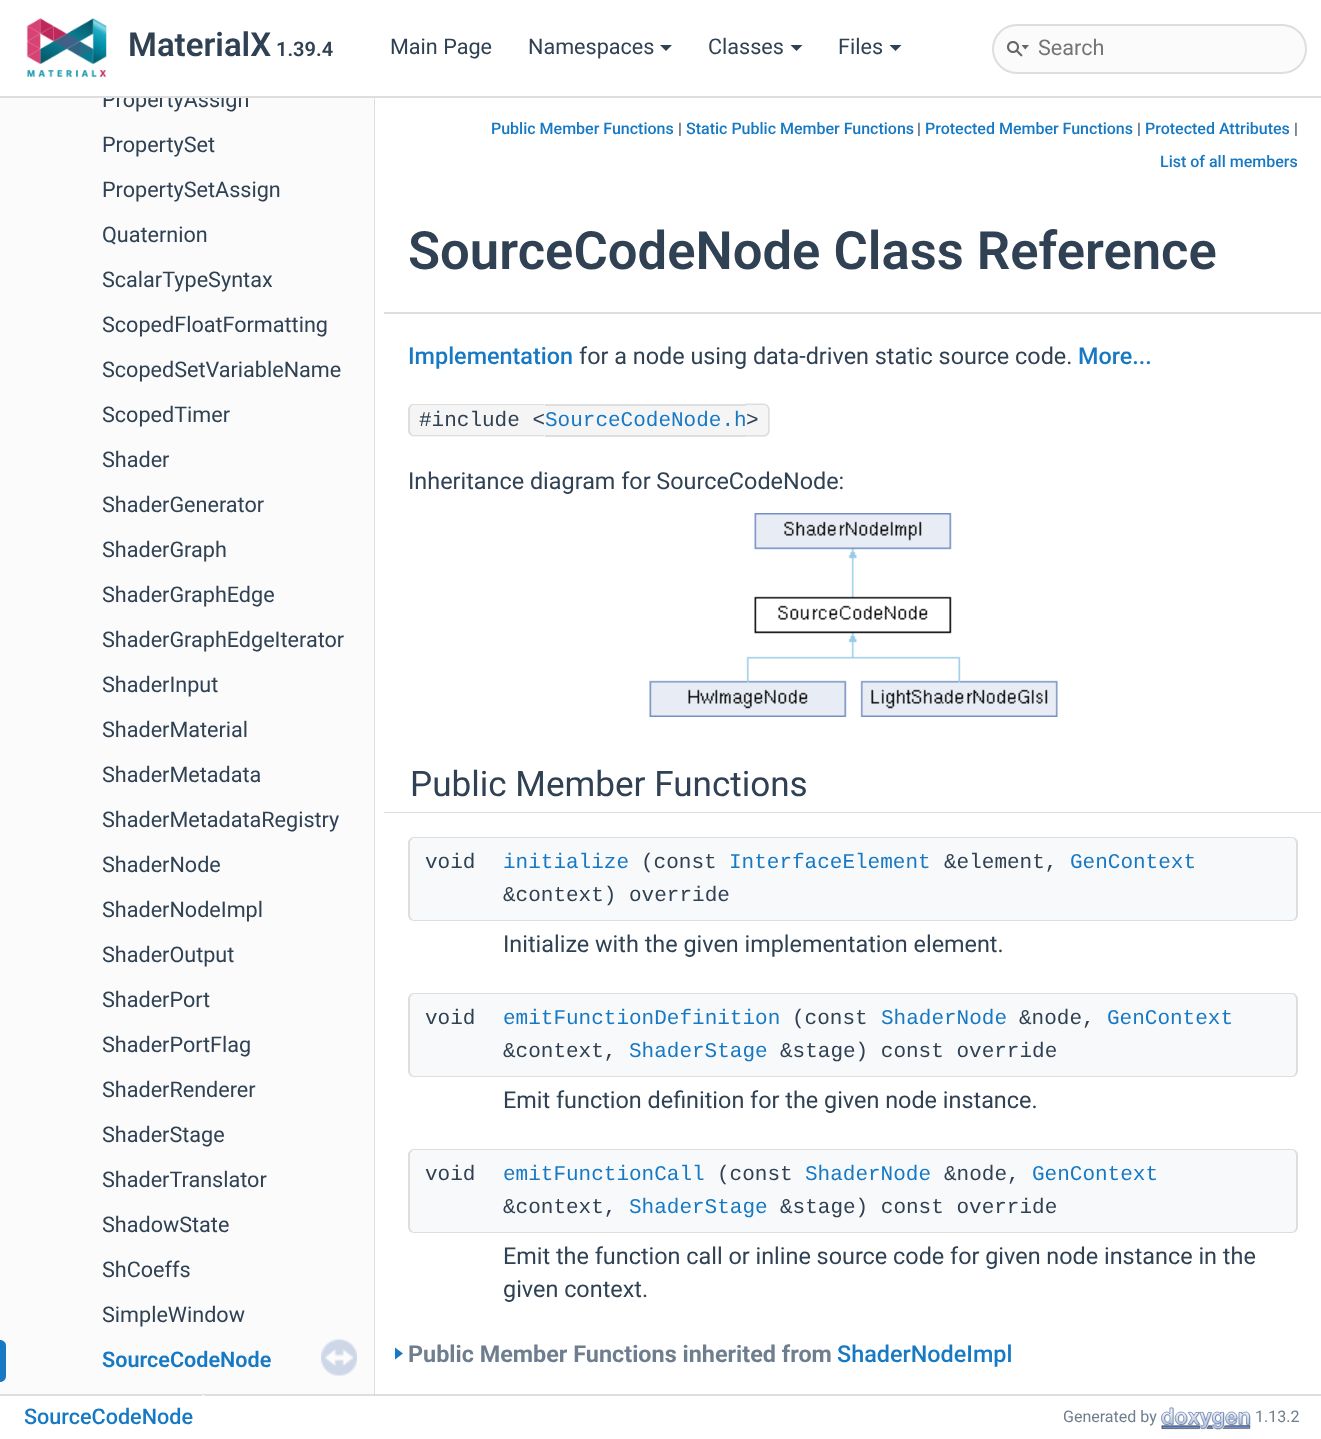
<svg xmlns="http://www.w3.org/2000/svg" width="1321" height="1439" viewBox="0 0 1321 1439">
  <defs>
    <clipPath id="clip1"><path d="M384 98h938v1296H384z"/></clipPath>
    <clipPath id="clip2"><path d="M0 1395h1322v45H0z"/></clipPath>
    <clipPath id="clip3"><path d="M0 98h375v1296H0z"/></clipPath>
  </defs>
  <rect width="100%" height="100%" fill="#fff"/>
  <path d="M0 96h1321v2H0z" fill="#dedede"/>
  <image x="26" y="18" width="81" height="60" href="img/1.png"/>
  <path d="M660 45H672L666 51Z" fill="#2f4153"/>
  <path d="M790.5 45H802.5L796.5 51Z" fill="#2f4153"/>
  <path d="M889.5 45H901.5L895.5 51Z" fill="#2f4153"/>
  <rect x="993" y="25" width="313" height="48" rx="24" fill="#fbfbfb" stroke="#dedede" stroke-width="2"/>
  <image x="1007" y="41" width="22" height="16" href="img/2.png"/>
  <path d="M0 98h374v1296H0z" fill="#fbfbfb"/>
  <path d="M0 1340C3.5 1340 6 1342.5 6 1346V1376C6 1379.5 3.5 1382 0 1382Z" fill="#1779c4"/>
  <image x="321" y="1339" width="36" height="37" href="img/3.png"/>
  <path d="M374 98h1v1296H374z" fill="#dedede"/>
  <path d="M384 312h937v2H384z" fill="#dedede"/>
  <path d="M414 404H545V437H414C410.5 437 408 434.5 408 431V410C408 406.5 410.5 404 414 404Z" fill="#f5f5f5"/>
  <path d="M414 404H544V436H414C411 436 408 434 408 430V410C408 406 411 404 414 404ZM414 405H544V435H414C412 435 410 433 410 430V410C410 407 412 405 414 405Z" fill="#dedede" fill-rule="evenodd"/>
  <path d="M545 406h201v29H545z" fill="#f5f5f5"/>
  <path d="M545 404h201v2H545z" fill="#dedede"/>
  <path d="M545 435h201v2H545z" fill="#dedede"/>
  <path d="M746 404H764C767.5 404 770 406.5 770 410V431C770 434.5 767.5 437 764 437H746Z" fill="#f5f5f5"/>
  <path d="M745.5 403.5H763.5C767 403.5 769.5 406 769.5 409.5V430.5C769.5 434 767 436.5 763.5 436.5H745.5ZM745.5 405H763.5C766 405 768 407 768 409.5V430.5C768 433 766 435 763.5 435H745.5Z" fill="#dedede" fill-rule="evenodd"/>
  <image x="649" y="513" width="409" height="204" href="img/4.png"/>
  <g clip-path="url(#clip1)">
    <path d="M260 753V813H1146V812H410V753Z" fill="#dedede"/>
  </g>
  <path d="M560 812V813H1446V753H1296V812Z" fill="#dedede"/>
  <g clip-path="url(#clip1)">
    <path d="M260 752V812H1146H410V752Z" fill="#fff"/>
  </g>
  <path d="M560 812H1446V752H1296V812Z" fill="#fff"/>
  <path d="M414 837H503V921H414C410.5 921 408 918.5 408 915V843C408 839.5 410.5 837 414 837Z" fill="#f8f9fa"/>
  <path d="M414 837H502V921H414C411 921 408 918 408 915V843C408 840 411 837 414 837ZM414 838H502V920H414C412 920 410 917 410 915V843C410 841 412 838 414 838Z" fill="#dedede" fill-rule="evenodd"/>
  <path d="M503 837H1292C1295.5 837 1298 839.5 1298 843V915C1298 918.5 1295.5 921 1292 921H503Z" fill="#f8f9fa"/>
  <path d="M502 837H1292C1295 837 1298 840 1298 843V915C1298 918 1295 921 1292 921H502ZM502 838H1292C1294 838 1296 841 1296 843V915C1296 917 1294 920 1292 920H502Z" fill="#dedede" fill-rule="evenodd"/>
  <path d="M414 993H503V1077H414C410.5 1077 408 1074.5 408 1071V999C408 995.5 410.5 993 414 993Z" fill="#f8f9fa"/>
  <path d="M414 993H502V1077H414C411 1077 408 1074 408 1071V999C408 996 411 993 414 993ZM414 994H502V1076H414C412 1076 410 1073 410 1071V999C410 997 412 994 414 994Z" fill="#dedede" fill-rule="evenodd"/>
  <path d="M503 993H1292C1295.5 993 1298 995.5 1298 999V1071C1298 1074.5 1295.5 1077 1292 1077H503Z" fill="#f8f9fa"/>
  <path d="M502 993H1292C1295 993 1298 996 1298 999V1071C1298 1074 1295 1077 1292 1077H502ZM502 994H1292C1294 994 1296 997 1296 999V1071C1296 1073 1294 1076 1292 1076H502Z" fill="#dedede" fill-rule="evenodd"/>
  <path d="M414 1149H503V1233H414C410.5 1233 408 1230.5 408 1227V1155C408 1151.5 410.5 1149 414 1149Z" fill="#f8f9fa"/>
  <path d="M414 1149H502V1233H414C411 1233 408 1230 408 1227V1155C408 1152 411 1149 414 1149ZM414 1150H502V1232H414C412 1232 410 1229 410 1227V1155C410 1153 412 1150 414 1150Z" fill="#dedede" fill-rule="evenodd"/>
  <path d="M503 1149H1292C1295.5 1149 1298 1151.5 1298 1155V1227C1298 1230.5 1295.5 1233 1292 1233H503Z" fill="#f8f9fa"/>
  <path d="M502 1149H1292C1295 1149 1298 1152 1298 1155V1227C1298 1230 1295 1233 1292 1233H502ZM502 1150H1292C1294 1150 1296 1153 1296 1155V1227C1296 1229 1294 1232 1292 1232H502Z" fill="#dedede" fill-rule="evenodd"/>
  <path d="M395 1359.5V1347.5L403 1353.5Z" fill="#1779c4"/>
  <path d="M0 1394h1321v2H0z" fill="#dedede"/>
  <g clip-path="url(#clip2)">
    <path d="M202 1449V1386L210 1418Z" fill="#fff"/>
  </g>
  <image x="1161" y="1407" width="90" height="23" href="img/5.png"/>
  <text x="128" y="56" font-family="Roboto" font-size="33" font-weight="600" fill="#2f4153">MaterialX</text>
  <text x="276" y="56" font-family="Roboto" font-size="20" font-weight="600" fill="#2f4153">1.39.4</text>
  <g font-family="Roboto" font-size="21.6" fill="#2f4153">
    <text x="390" y="54">Main Page</text>
    <text x="528" y="54">Namespaces</text>
    <text x="708" y="54">Classes</text>
    <text x="838" y="54">Files</text>
  </g>
  <text x="1038" y="55" font-family="Roboto" font-size="21.6" fill="#757575">Search</text>
  <g clip-path="url(#clip3)">
    <text x="102" y="107" font-family="Roboto" font-size="21.6" fill="#2f4153">PropertyAssign</text>
  </g>
  <g font-family="Roboto" font-size="21.6" fill="#2f4153">
    <text x="102" y="152">PropertySet</text>
    <text x="102" y="197">PropertySetAssign</text>
    <text x="102" y="242">Quaternion</text>
    <text x="102" y="287">ScalarTypeSyntax</text>
    <text x="102" y="332">ScopedFloatFormatting</text>
    <text x="102" y="377">ScopedSetVariableName</text>
    <text x="102" y="422">ScopedTimer</text>
    <text x="102" y="467">Shader</text>
    <text x="102" y="512">ShaderGenerator</text>
    <text x="102" y="557">ShaderGraph</text>
    <text x="102" y="602">ShaderGraphEdge</text>
    <text x="102" y="647">ShaderGraphEdgeIterator</text>
    <text x="102" y="692">ShaderInput</text>
    <text x="102" y="737">ShaderMaterial</text>
    <text x="102" y="782">ShaderMetadata</text>
    <text x="102" y="827">ShaderMetadataRegistry</text>
    <text x="102" y="872">ShaderNode</text>
    <text x="102" y="917">ShaderNodeImpl</text>
    <text x="102" y="962">ShaderOutput</text>
    <text x="102" y="1007">ShaderPort</text>
    <text x="102" y="1052">ShaderPortFlag</text>
    <text x="102" y="1097">ShaderRenderer</text>
    <text x="102" y="1142">ShaderStage</text>
    <text x="102" y="1187">ShaderTranslator</text>
    <text x="102" y="1232">ShadowState</text>
    <text x="102" y="1277">ShCoeffs</text>
    <text x="102" y="1322">SimpleWindow</text>
  </g>
  <text x="102" y="1367" font-family="Roboto" font-size="21.6" font-weight="600" fill="#1779c4">SourceCodeNode</text>
  <text x="491" y="134" font-family="Roboto" font-size="16" font-weight="500" fill="#1779c4">Public Member Functions</text>
  <text x="678" y="134" font-family="Roboto" font-size="16" fill="#2f4153">|</text>
  <text x="686" y="134" font-family="Roboto" font-size="16" font-weight="500" fill="#1779c4">Static Public Member Functions</text>
  <text x="917" y="134" font-family="Roboto" font-size="16" fill="#2f4153">|</text>
  <text x="925" y="134" font-family="Roboto" font-size="16" font-weight="500" fill="#1779c4">Protected Member Functions</text>
  <text x="1137" y="134" font-family="Roboto" font-size="16" fill="#2f4153">|</text>
  <text x="1145" y="134" font-family="Roboto" font-size="16" font-weight="500" fill="#1779c4">Protected Attributes</text>
  <text x="1294" y="134" font-family="Roboto" font-size="16" fill="#2f4153">|</text>
  <text x="1160" y="167" font-family="Roboto" font-size="16" font-weight="500" fill="#1779c4">List of all members</text>
  <text x="408" y="269" font-family="Roboto" font-size="52.6" font-weight="600" fill="#2f4153">SourceCodeNode Class Reference</text>
  <text x="408" y="364" font-family="Roboto" font-size="23.4" font-weight="500" fill="#1779c4">Implementation</text>
  <text x="579" y="364" font-family="Roboto" font-size="23.4" fill="#2f4153">for a node using data-driven static source code.</text>
  <text x="1078" y="364" font-family="Roboto" font-size="23.4" font-weight="500" fill="#1779c4">More...</text>
  <text x="419" y="426" font-family="Liberation Mono" font-size="21" fill="#2f4153">#include &lt;</text>
  <text x="545" y="426" font-family="Liberation Mono" font-size="21" fill="#1779c4">SourceCodeNode.h</text>
  <text x="746" y="426" font-family="Liberation Mono" font-size="21" fill="#2f4153">&gt;</text>
  <text x="408" y="489" font-family="Roboto" font-size="23.4" fill="#2f4153">Inheritance diagram for SourceCodeNode:</text>
  <text x="410" y="796" font-family="Roboto" font-size="35.1" fill="#2f4153">Public Member Functions</text>
  <text x="425" y="868" font-family="Liberation Mono" font-size="21" fill="#2f4153">void</text>
  <text x="503" y="868" font-family="Liberation Mono" font-size="21" fill="#1779c4">initialize</text>
  <text x="641" y="868" font-family="Liberation Mono" font-size="21" fill="#2f4153">(const</text>
  <text x="729" y="868" font-family="Liberation Mono" font-size="21" fill="#1779c4">InterfaceElement</text>
  <text x="944" y="868" font-family="Liberation Mono" font-size="21" fill="#2f4153">&amp;element,</text>
  <text x="1070" y="868" font-family="Liberation Mono" font-size="21" fill="#1779c4">GenContext</text>
  <text x="503" y="901" font-family="Liberation Mono" font-size="21" fill="#2f4153">&amp;context) override</text>
  <text x="503" y="952" font-family="Roboto" font-size="23.4" fill="#2f4153">Initialize with the given implementation element.</text>
  <text x="425" y="1024" font-family="Liberation Mono" font-size="21" fill="#2f4153">void</text>
  <text x="503" y="1024" font-family="Liberation Mono" font-size="21" fill="#1779c4">emitFunctionDefinition</text>
  <text x="792" y="1024" font-family="Liberation Mono" font-size="21" fill="#2f4153">(const</text>
  <text x="881" y="1024" font-family="Liberation Mono" font-size="21" fill="#1779c4">ShaderNode</text>
  <text x="1019" y="1024" font-family="Liberation Mono" font-size="21" fill="#2f4153">&amp;node,</text>
  <text x="1107" y="1024" font-family="Liberation Mono" font-size="21" fill="#1779c4">GenContext</text>
  <text x="503" y="1057" font-family="Liberation Mono" font-size="21" fill="#2f4153">&amp;context,</text>
  <text x="629" y="1057" font-family="Liberation Mono" font-size="21" fill="#1779c4">ShaderStage</text>
  <text x="780" y="1057" font-family="Liberation Mono" font-size="21" fill="#2f4153">&amp;stage) const override</text>
  <text x="503" y="1108" font-family="Roboto" font-size="23.4" fill="#2f4153">Emit function definition for the given node instance.</text>
  <text x="425" y="1180" font-family="Liberation Mono" font-size="21" fill="#2f4153">void</text>
  <text x="503" y="1180" font-family="Liberation Mono" font-size="21" fill="#1779c4">emitFunctionCall</text>
  <text x="717" y="1180" font-family="Liberation Mono" font-size="21" fill="#2f4153">(const</text>
  <text x="805" y="1180" font-family="Liberation Mono" font-size="21" fill="#1779c4">ShaderNode</text>
  <text x="944" y="1180" font-family="Liberation Mono" font-size="21" fill="#2f4153">&amp;node,</text>
  <text x="1032" y="1180" font-family="Liberation Mono" font-size="21" fill="#1779c4">GenContext</text>
  <text x="503" y="1213" font-family="Liberation Mono" font-size="21" fill="#2f4153">&amp;context,</text>
  <text x="629" y="1213" font-family="Liberation Mono" font-size="21" fill="#1779c4">ShaderStage</text>
  <text x="780" y="1213" font-family="Liberation Mono" font-size="21" fill="#2f4153">&amp;stage) const override</text>
  <g font-family="Roboto" font-size="23.4" fill="#2f4153">
    <text x="503" y="1264">Emit the function call or inline source code for given node instance in the</text>
    <text x="503" y="1297">given context.</text>
  </g>
  <text x="408" y="1362" font-family="Roboto" font-size="23.4" font-weight="bold" fill="#6f7e8e">Public Member Functions inherited from</text>
  <text x="837" y="1362" font-family="Roboto" font-size="23.4" font-weight="500" fill="#1779c4">ShaderNodeImpl</text>
  <text x="24" y="1424" font-family="Roboto" font-size="21.6" font-weight="500" fill="#1779c4">SourceCodeNode</text>
  <g font-family="Roboto" font-size="16" fill="#6f7e8e">
    <text x="1063" y="1422">Generated by</text>
    <text x="1255" y="1422">1.13.2</text>
  </g>
</svg>
